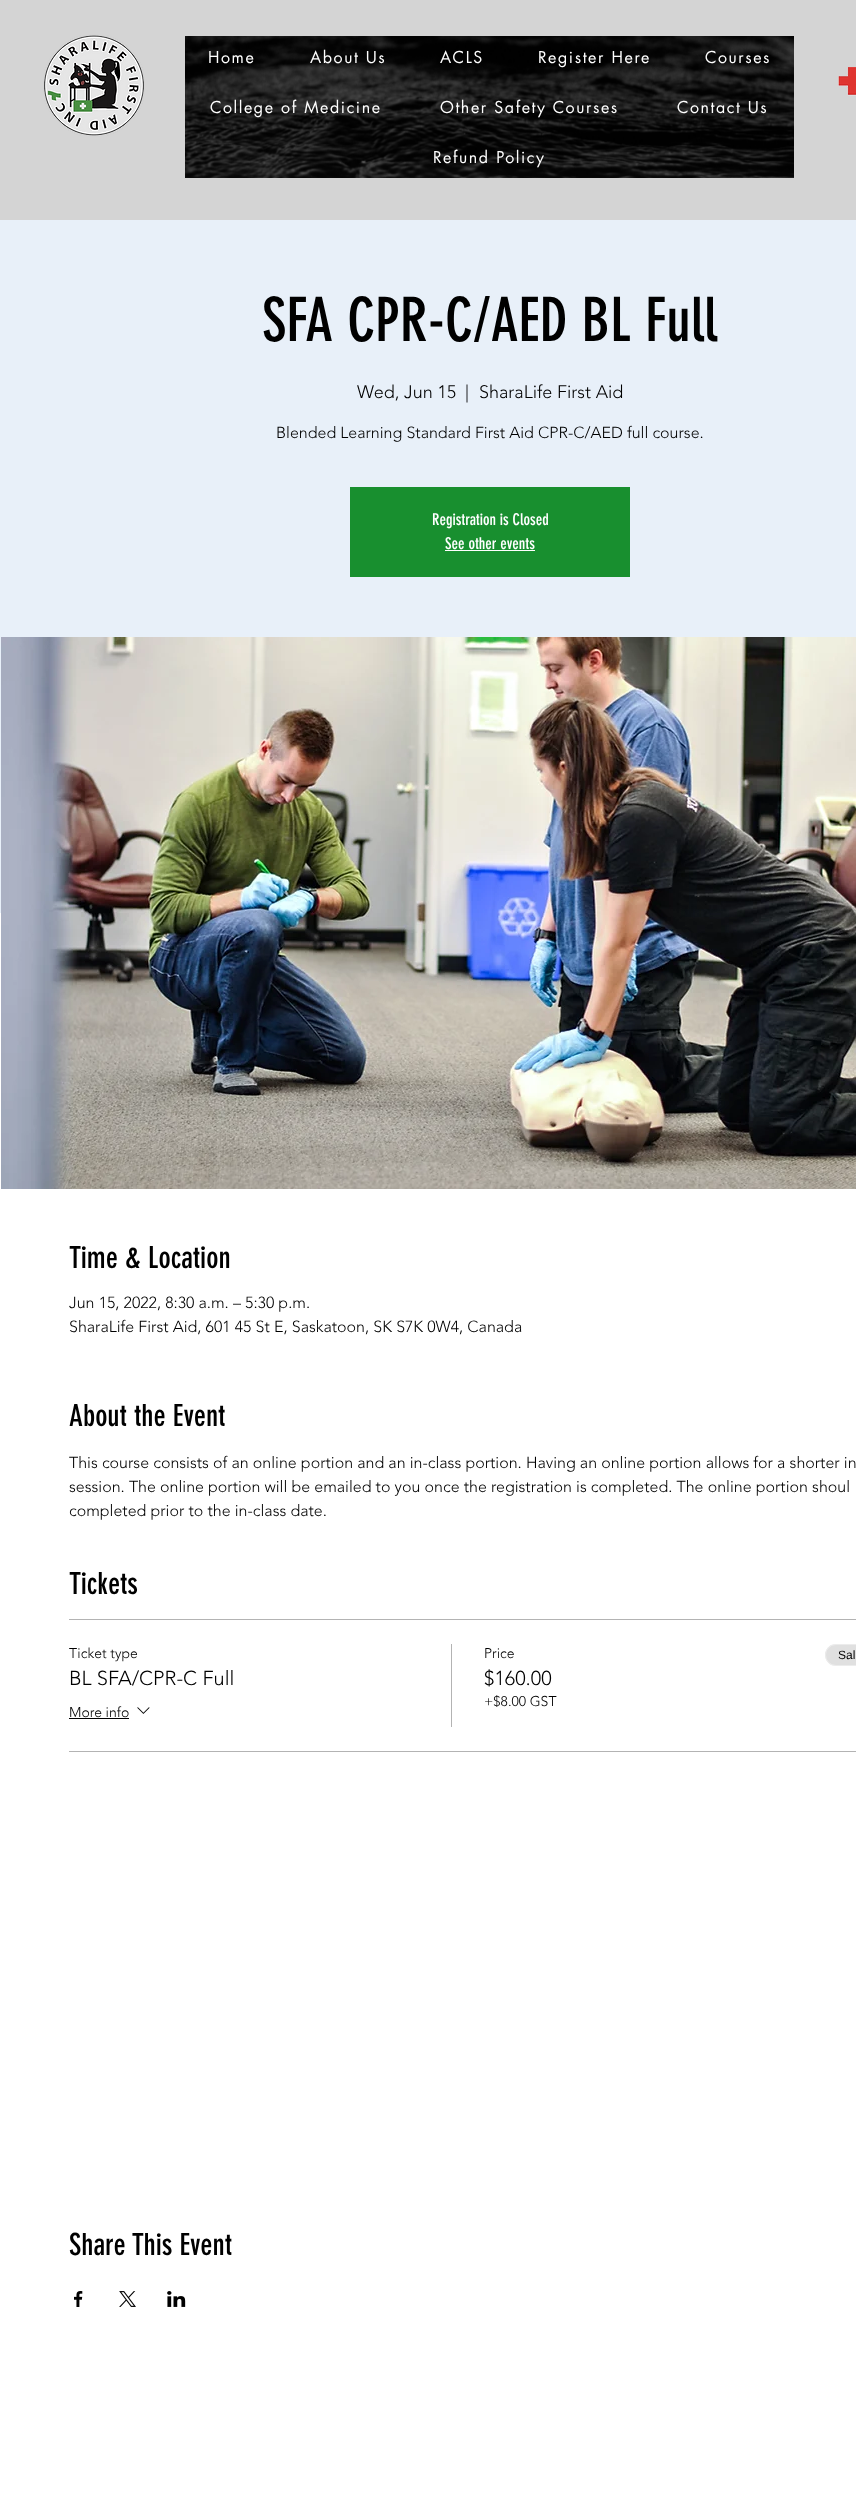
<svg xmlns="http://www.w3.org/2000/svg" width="856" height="2503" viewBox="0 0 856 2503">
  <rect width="100%" height="100%" fill="#fff"/>
  <path d="M0 0h856v220H0z" fill="#d4d4d4"/>
  <image x="44" y="35" width="100" height="101" href="img/1.png"/>
  <image x="185" y="36" width="609" height="142" href="img/2.png"/>
  <image x="838" y="67" width="18" height="29" href="img/3.png"/>
  <path d="M0 220h856v693H0z" fill="#e8f0f9"/>
  <path d="M350 487h280v90H350z" fill="#188f2f"/>
  <path d="M445 550h90v1H445z" fill="#fff"/>
  <image x="1" y="637" width="855" height="552" href="img/4.png"/>
  <path d="M69 1619h787v1H69z" fill="#b3b3b3"/>
  <path d="M69 1751h787v1H69z" fill="#b3b3b3"/>
  <path d="M69 1718h60v1H69z" fill="#000"/>
  <image x="137" y="1707" width="13" height="7" href="img/5.png"/>
  <path d="M451 1644h1v83H451z" fill="#b3b3b3"/>
  <rect x="825" y="1644" width="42" height="22" rx="11" fill="#e0e0e0"/>
  <rect x="825.5" y="1644.5" width="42" height="21" rx="10.5" fill="none" stroke="#ffffff66"/>
  <image x="74" y="2291" width="9" height="16" href="img/6.png"/>
  <image x="119" y="2291" width="17" height="16" href="img/7.png"/>
  <image x="167" y="2291" width="19" height="16" href="img/8.png"/>
  <g font-family="futura" font-size="16" letter-spacing="1.6" fill="#fff">
    <text x="208" y="63">Home</text>
    <text x="310" y="63">About Us</text>
    <text x="440" y="63">ACLS</text>
    <text x="538" y="63">Register Here</text>
    <text x="705" y="63">Courses</text>
    <text x="210" y="113">College of Medicine</text>
    <text x="440" y="113">Other Safety Courses</text>
    <text x="677" y="113">Contact Us</text>
    <text x="433" y="163">Refund Policy</text>
  </g>
  <text x="262" y="341" font-family="'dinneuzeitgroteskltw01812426'" font-size="60" fill="#000">SFA CPR-C/AED BL Full</text>
  <g font-family="'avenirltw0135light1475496'" font-size="18" font-weight="300" fill="#000">
    <text x="357" y="398">Wed, Jun 15</text>
    <text x="465" y="398">|</text>
    <text x="479" y="398">SharaLife First Aid</text>
  </g>
  <text x="276" y="438" font-family="'avenirltw0135light1475496'" font-size="16" font-weight="300" fill="#000">Blended Learning Standard First Aid CPR-C/AED full course.</text>
  <g font-family="'dinneuzeitgroteskltw01812426'" font-size="16" fill="#fff">
    <text x="432" y="525">Registration is Closed</text>
    <text x="445" y="549">See other events</text>
  </g>
  <text x="69" y="1268" font-family="'dinneuzeitgroteskltw01812426'" font-size="30" fill="#000">Time &amp; Location</text>
  <g font-family="'avenirltw0135light1475496'" font-size="16" font-weight="300" fill="#000">
    <text x="69" y="1308">Jun 15, 2022, 8:30 a.m. – 5:30 p.m.</text>
    <text x="69" y="1332">SharaLife First Aid, 601 45 St E, Saskatoon, SK S7K 0W4, Canada</text>
  </g>
  <text x="69" y="1426" font-family="'dinneuzeitgroteskltw01812426'" font-size="30" fill="#000">About the Event</text>
  <g font-family="'avenirltw0135light1475496'" font-size="16" font-weight="300" fill="#000">
    <text x="69" y="1468">This course consists of an online portion and an in-class portion. Having an online portion allows for a shorter in</text>
    <text x="69" y="1492">session. The online portion will be emailed to you once the registration is completed. The online portion shoul</text>
    <text x="69" y="1516">completed prior to the in-class date.</text>
  </g>
  <text x="69" y="1594" font-family="'dinneuzeitgroteskltw01812426'" font-size="30" fill="#000">Tickets</text>
  <text x="69" y="1658" font-family="'avenirltw0135light1475496'" font-size="14" font-weight="300" fill="#000">Ticket type</text>
  <text x="69" y="1685" font-family="'avenirltw0135light1475496'" font-size="20" font-weight="300" fill="#000">BL SFA/CPR-C Full</text>
  <g font-family="'avenirltw0135light1475496'" font-size="14" font-weight="300" fill="#000">
    <text x="69" y="1717">More info</text>
    <text x="484" y="1658">Price</text>
  </g>
  <text x="484" y="1685" font-family="'avenirltw0135light1475496'" font-size="20" font-weight="300" fill="#000">$160.00</text>
  <text x="484" y="1706" font-family="'avenirltw0135light1475496'" font-size="14" font-weight="300" fill="#000">+$8.00 GST</text>
  <text x="838" y="1659" font-family="Liberation Sans" font-size="12" fill="#000">Sal</text>
  <text x="69" y="2255" font-family="'dinneuzeitgroteskltw01812426'" font-size="30" fill="#000">Share This Event</text>
</svg>
